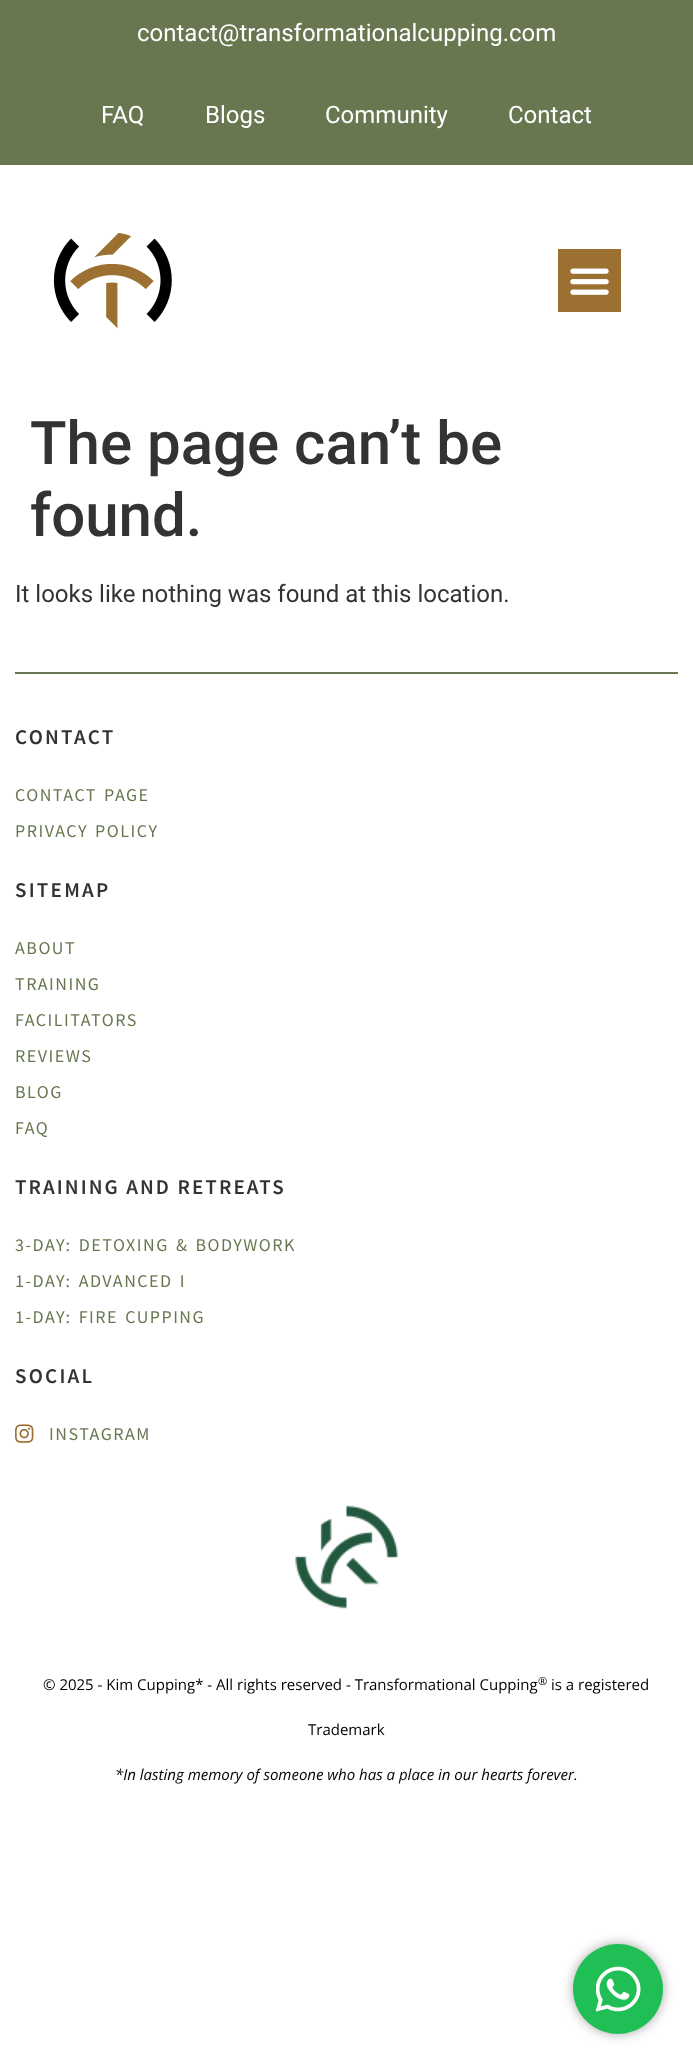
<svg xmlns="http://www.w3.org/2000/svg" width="693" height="2064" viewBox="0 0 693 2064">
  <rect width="100%" height="100%" fill="#fff"/>
  <path d="M0 0h693v165H0z" fill="#687750"/>
  <image x="53" y="232" width="119" height="97" href="img/1.png"/>
  <path d="M558 249h63v63H558z" fill="#9c7030"/>
  <image x="570" y="268" width="39" height="27" href="img/2.png"/>
  <path d="M15 672h663v2H15z" fill="#687750"/>
  <image x="15" y="1424" width="19" height="19" href="img/3.png"/>
  <image x="295" y="1505" width="103" height="104" href="img/4.png"/>
  <rect x="573" y="1944" width="90" height="90" rx="45" fill="#00000059" filter="blur(6px)"/>
  <circle cx="618" cy="1989" r="45" fill="#20bf55"/>
  <image x="596" y="1966" width="45" height="46" href="img/5.png"/>
  <g font-family="Roboto" font-size="24" fill="#fff">
    <text x="137" y="41">contact@transformationalcupping.com</text>
    <text x="101" y="123">FAQ</text>
    <text x="205" y="123">Blogs</text>
    <text x="325" y="123">Community</text>
    <text x="508" y="123">Contact</text>
  </g>
  <g font-family="Roboto" font-size="60" font-weight="500" fill="#333">
    <text x="30" y="464">The page can’t be</text>
    <text x="30" y="536">found.</text>
  </g>
  <text x="15" y="602" font-family="Roboto" font-size="24" fill="#333">It looks like nothing was found at this location.</text>
  <text x="15" y="744" font-family="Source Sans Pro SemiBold" font-size="21" font-weight="600" letter-spacing="2.25" fill="#333">CONTACT</text>
  <g font-family="Source Sans Pro" font-size="18" letter-spacing="1.5" fill="#687750">
    <text x="15" y="801" word-spacing="2">CONTACT PAGE</text>
    <text x="15" y="837" word-spacing="2">PRIVACY POLICY</text>
  </g>
  <text x="15" y="897" font-family="Source Sans Pro SemiBold" font-size="21" font-weight="600" letter-spacing="2.25" fill="#333">SITEMAP</text>
  <g font-family="Source Sans Pro" font-size="18" letter-spacing="1.5" fill="#687750">
    <text x="15" y="954">ABOUT</text>
    <text x="15" y="990">TRAINING</text>
    <text x="15" y="1026">FACILITATORS</text>
    <text x="15" y="1062">REVIEWS</text>
    <text x="15" y="1098">BLOG</text>
    <text x="15" y="1134">FAQ</text>
  </g>
  <text x="15" y="1194" font-family="Source Sans Pro SemiBold" font-size="21" font-weight="600" letter-spacing="2.1" fill="#333">TRAINING AND RETREATS</text>
  <g font-family="Source Sans Pro" font-size="18" letter-spacing="1.5" fill="#687750">
    <text x="15" y="1251" word-spacing="2">3-DAY: DETOXING &amp; BODYWORK</text>
    <text x="15" y="1287" word-spacing="2">1-DAY: ADVANCED I</text>
    <text x="15" y="1323" word-spacing="2">1-DAY: FIRE CUPPING</text>
  </g>
  <text x="15" y="1383" font-family="Source Sans Pro SemiBold" font-size="21" font-weight="600" letter-spacing="2.25" fill="#333">SOCIAL</text>
  <text x="49" y="1440" font-family="Source Sans Pro" font-size="18" letter-spacing="1.5" fill="#687750">INSTAGRAM</text>
  <text x="43" y="1690" font-family="Open Sans" font-size="15" fill="#000">© 2025 - Kim Cupping* - All rights reserved - Transformational Cupping</text>
  <text x="538" y="1685" font-family="Open Sans" font-size="11" fill="#000">®</text>
  <g font-family="Open Sans" font-size="15" fill="#000">
    <text x="551" y="1690">is a registered</text>
    <text x="308" y="1735">Trademark</text>
  </g>
  <text x="115" y="1780" font-family="Open Sans" font-size="15" font-style="italic" fill="#000">*In lasting memory of someone who has a place in our hearts forever.</text>
</svg>
